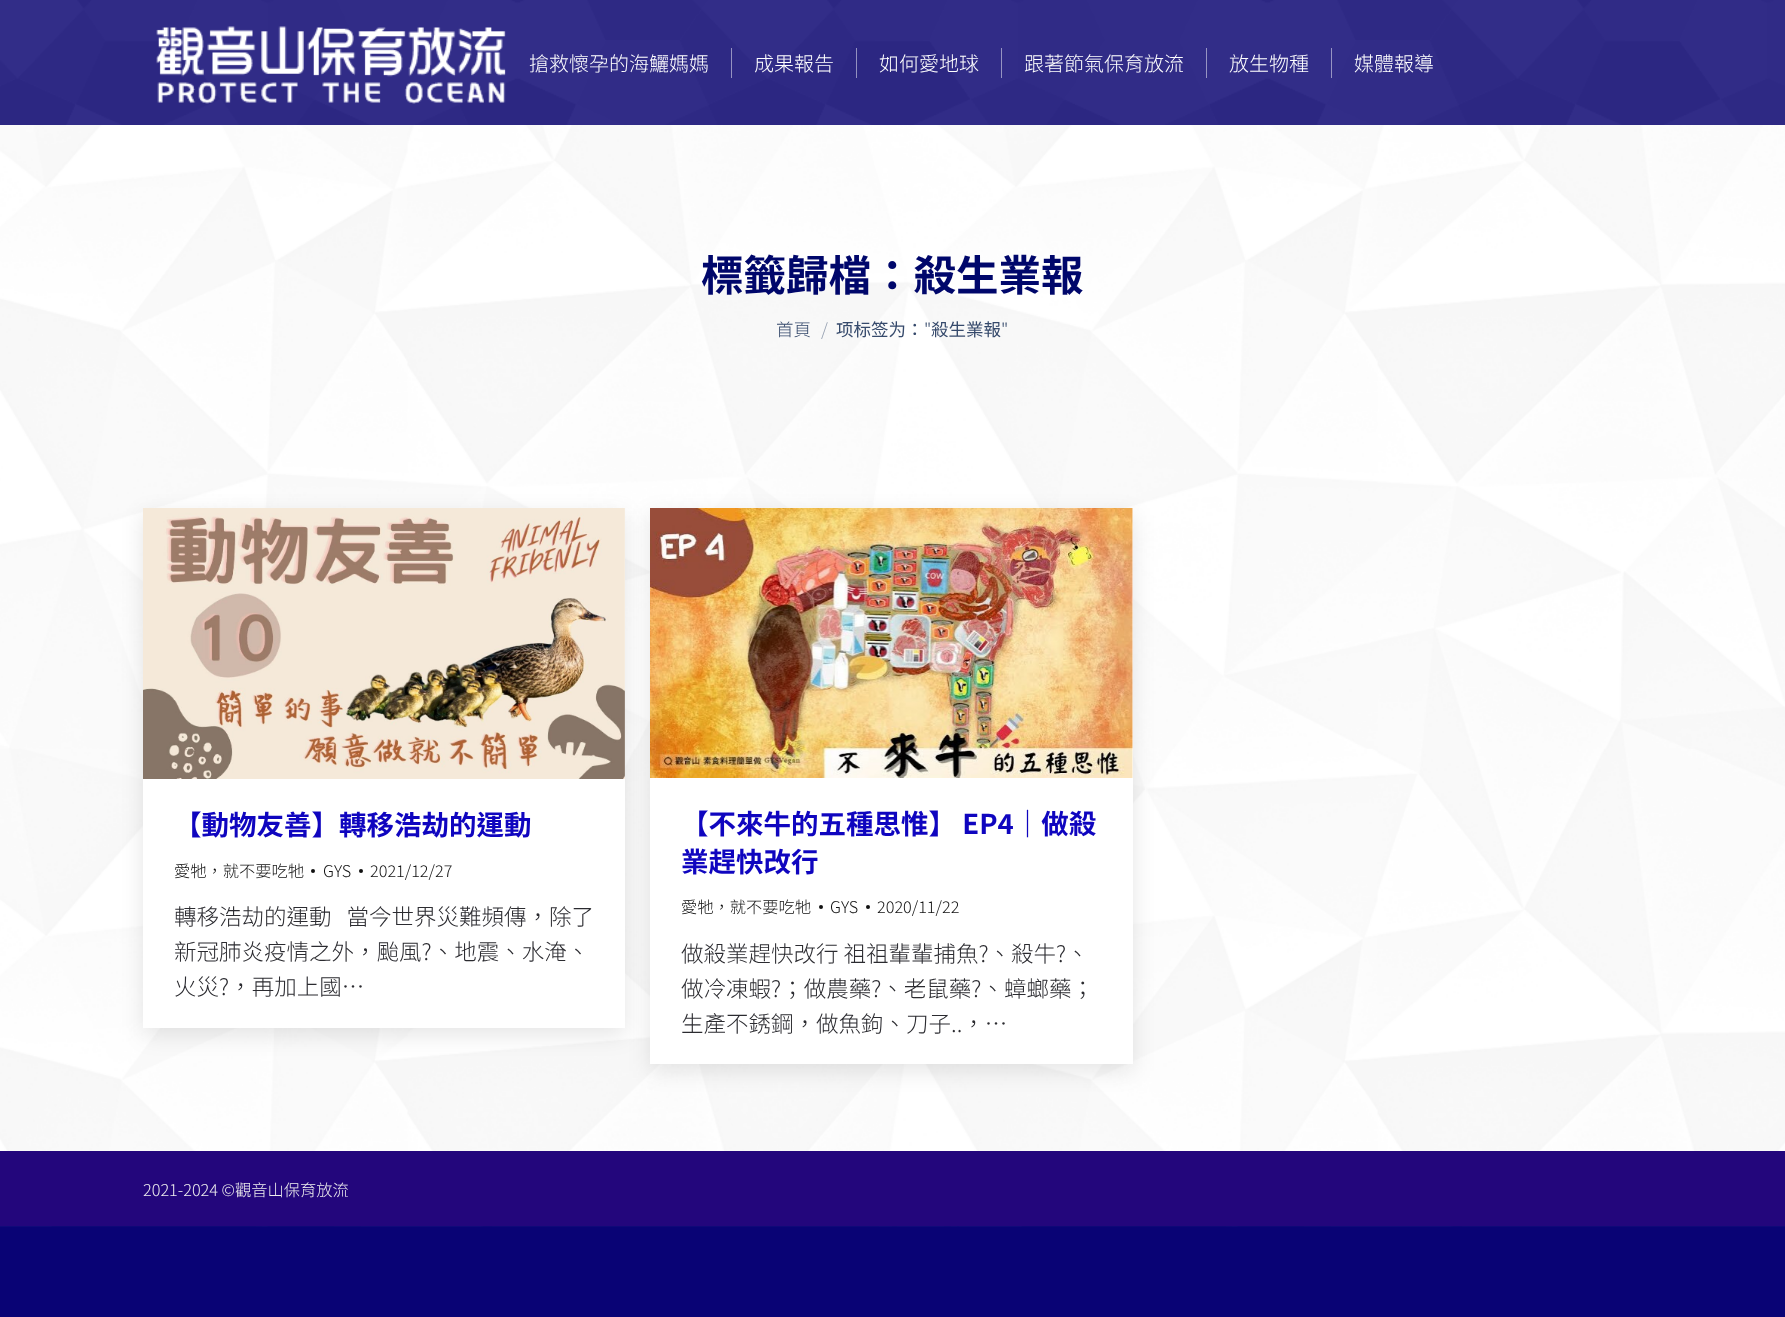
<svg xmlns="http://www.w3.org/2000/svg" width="1785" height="1317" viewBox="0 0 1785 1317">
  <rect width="100%" height="100%" fill="#090375"/>
  <path d="M0 125h1785v1026H0z" fill="#fff"/>
  <image x="0" y="125" width="1785" height="1102" href="img/1.png"/>
  <image x="0" y="0" width="1785" height="125" href="img/2.png"/>
  <image x="156" y="26" width="350" height="78" href="img/3.png"/>
  <path d="M731 48h1v30H731z" fill="#9592c1"/>
  <path d="M856 48h1v30H856z" fill="#9391c0"/>
  <path d="M1001 48h1v30H1001z" fill="#9694c2"/>
  <path d="M1206 48h1v30H1206z" fill="#9794c3"/>
  <path d="M1331 48h1v30H1331z" fill="#9794c3"/>
  <path d="M143 515h482v520H143z" fill="#0000001a" filter="blur(11px)"/>
  <path d="M143 508h482v520H143z" fill="#fff"/>
  <image x="143" y="508" width="482" height="271" href="img/4.png"/>
  <circle cx="313" cy="871" r="2" fill="#111"/>
  <circle cx="361" cy="871" r="2" fill="#111"/>
  <path d="M650 515h483v556H650z" fill="#0000001a" filter="blur(11px)"/>
  <path d="M650 508h483v556H650z" fill="#fff"/>
  <image x="650" y="508" width="483" height="270" href="img/5.png"/>
  <circle cx="821" cy="907" r="2" fill="#111"/>
  <circle cx="868" cy="907" r="2" fill="#111"/>
  <path d="M0 1151h1785v75H0z" fill="#23067c"/>
  <g font-family="Noto Sans TC" font-size="20" font-weight="300" fill="#fff">
    <text x="529" y="71">搶救懷孕的海鱺媽媽</text>
    <text x="754" y="71">成果報告</text>
    <text x="879" y="71">如何愛地球</text>
    <text x="1024" y="71">跟著節氣保育放流</text>
    <text x="1229" y="71">放生物種</text>
    <text x="1354" y="71">媒體報導</text>
  </g>
  <text x="701" y="291" font-family="Noto Sans TC" font-size="42.5" font-weight="bold" fill="#00076b">標籤歸檔：殺生業報</text>
  <text x="776" y="336" font-family="Noto Sans TC" font-size="17.5" font-weight="300" fill="#35496b">首頁</text>
  <text x="821" y="336" font-family="Noto Sans TC" font-size="17.5" font-weight="300" fill="#96a0b1">/</text>
  <text x="836" y="336" font-family="Noto Sans CJK TC" font-size="17.5" fill="#35496b">项标签为：</text>
  <text x="924" y="336" font-family="Noto Sans TC" font-size="17.5" font-weight="300" fill="#35496b">"</text>
  <text x="931" y="336" font-family="Noto Sans CJK TC" font-size="17.5" fill="#35496b">殺生業報</text>
  <text x="1001" y="336" font-family="Noto Sans TC" font-size="17.5" font-weight="300" fill="#35496b">"</text>
  <text x="174" y="835" font-family="Noto Sans TC" font-size="27.5" font-weight="bold" fill="#0f05bf">【動物友善】轉移浩劫的運動</text>
  <g font-family="Noto Sans TC" font-size="16.25" font-weight="300" fill="#111">
    <text x="174" y="877">愛牠，就不要吃牠</text>
    <text x="323" y="877">GYS</text>
    <text x="370" y="877">2021/12/27</text>
  </g>
  <g font-family="Noto Sans TC" font-size="22.5" font-weight="300" fill="#2b2b30">
    <text x="174" y="925" xml:space="preserve">轉移浩劫的運動   當今世界災難頻傳，除了</text>
    <text x="174" y="960">新冠肺炎疫情之外，颱風?、地震、水淹、</text>
    <text x="174" y="995">火災?，再加上國…</text>
  </g>
  <g font-family="Noto Sans TC" font-size="27.5" font-weight="bold" fill="#0f05bf">
    <text x="681" y="834">【不來牛的五種思惟】 EP4｜做殺</text>
    <text x="681" y="872">業趕快改行</text>
  </g>
  <g font-family="Noto Sans TC" font-size="16.25" font-weight="300" fill="#111">
    <text x="681" y="913">愛牠，就不要吃牠</text>
    <text x="830" y="913">GYS</text>
    <text x="877" y="913">2020/11/22</text>
  </g>
  <g font-family="Noto Sans TC" font-size="22.5" font-weight="300" fill="#2b2b30">
    <text x="681" y="962">做殺業趕快改行 祖祖輩輩捕魚?、殺牛?、</text>
    <text x="681" y="997">做冷凍蝦?；做農藥?、老鼠藥?、蟑螂藥；</text>
    <text x="681" y="1032">生產不銹鋼，做魚鉤、刀子..，…</text>
  </g>
  <text x="143" y="1196" font-family="Noto Sans TC" font-size="16.25" font-weight="300" fill="#eee">2021-2024 ©觀音山保育放流</text>
</svg>
